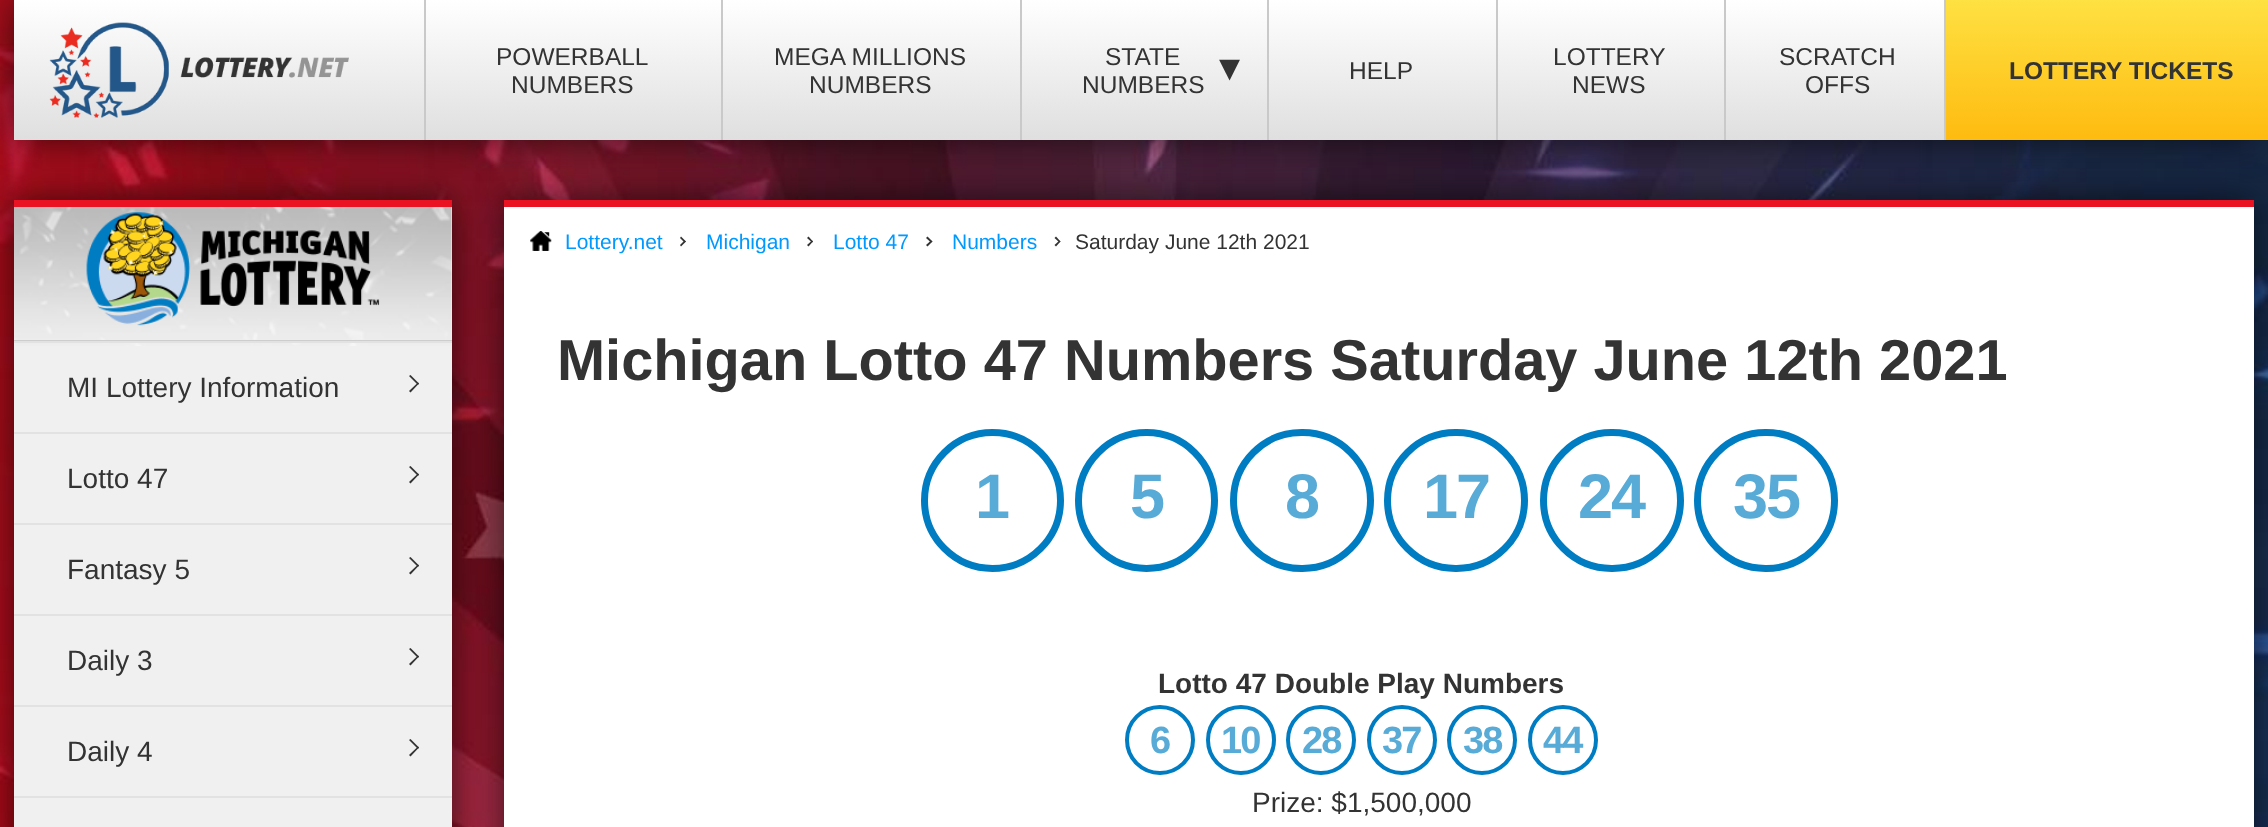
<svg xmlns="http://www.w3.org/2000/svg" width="2268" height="827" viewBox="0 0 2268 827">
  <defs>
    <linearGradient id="g1" gradientUnits="userSpaceOnUse" x1="1134" y1="0" x2="1134" y2="140"><stop offset="0" stop-color="#fff"/><stop offset="1" stop-color="#dfdfdf"/></linearGradient>
    <linearGradient id="g2" gradientUnits="userSpaceOnUse" x1="2121" y1="0" x2="2121" y2="140"><stop offset="0" stop-color="#fee142"/><stop offset="1" stop-color="#febb10"/></linearGradient>
  </defs>
  <rect width="100%" height="100%" fill="#fff"/>
  <image x="0" y="0" width="2268" height="827" href="img/1.png"/>
  <path d="M14 0h2240v140H14z" fill="#00000099" filter="blur(17.5px)"/>
  <path d="M14 0h1930v140H14z" fill="url(#g1)"/>
  <image x="49" y="22" width="300" height="96" href="img/2.png"/>
  <path d="M424 0h2v140H424z" fill="#c9c9c9"/>
  <path d="M721 0h2v140H721z" fill="#c9c9c9"/>
  <path d="M1020 0h2v140H1020z" fill="#c9c9c9"/>
  <path d="M1267 0h2v140H1267z" fill="#c9c9c9"/>
  <path d="M1496 0h2v140H1496z" fill="#c9c9c9"/>
  <path d="M1724 0h2v140H1724z" fill="#c9c9c9"/>
  <path d="M1946 0h322v140H1946z" fill="url(#g2)"/>
  <path d="M1944 0h2v140H1944z" fill="#c9c9c9"/>
  <path d="M14 200h438v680H14z" fill="#00000099" filter="blur(17.5px)"/>
  <path d="M14 207h438v620H14z" fill="#f0f0f0"/>
  <image x="14" y="207" width="438" height="139" href="img/3.png"/>
  <path d="M14 200h438v7H14z" fill="#ea1324"/>
  <path d="M504 200h1750v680H504z" fill="#00000099" filter="blur(17.5px)"/>
  <path d="M14 340h438v1H14z" fill="#cdcdcd"/>
  <image x="86" y="212" width="294" height="114" href="img/4.png"/>
  <path d="M14 341h438v2H14z" fill="#e2e2e2"/>
  <path d="M410.5 375L419 383.5L418 385L409 376Z" fill="#333"/>
  <path d="M418 382.5L419 383.5L410.5 392.5L409 391Z" fill="#333"/>
  <path d="M14 432h438v2H14z" fill="#e2e2e2"/>
  <path d="M410.5 466L419 474.5L418 476L409 467Z" fill="#333"/>
  <path d="M418 473.5L419 474.5L410.5 483.5L409 482Z" fill="#333"/>
  <path d="M14 523h438v2H14z" fill="#e2e2e2"/>
  <path d="M410.5 557L419 565.5L418 567L409 558Z" fill="#333"/>
  <path d="M418 564.5L419 565.5L410.5 574.5L409 573Z" fill="#333"/>
  <path d="M14 614h438v2H14z" fill="#e2e2e2"/>
  <path d="M410.5 648L419 656.5L418 658L409 649Z" fill="#333"/>
  <path d="M418 655.5L419 656.5L410.5 665.5L409 664Z" fill="#333"/>
  <path d="M14 705h438v2H14z" fill="#e2e2e2"/>
  <path d="M410.5 739L419 747.5L418 749L409 740Z" fill="#333"/>
  <path d="M418 746.5L419 747.5L410.5 756.5L409 755Z" fill="#333"/>
  <path d="M14 796h438v2H14z" fill="#e2e2e2"/>
  <path d="M504 207h1750v620H504z" fill="#fff"/>
  <path d="M504 200h1750v7H504z" fill="#ea1324"/>
  <image x="530" y="231" width="22" height="20" href="img/5.png"/>
  <path d="M681 236.5L686 241.5L684.5 242.5L680 238Z" fill="#333"/>
  <path d="M684.5 240.5L686 241.5L681 246.5L680 245Z" fill="#333"/>
  <path d="M808.5 236.5L813 241.5L812 242.5L807 238Z" fill="#333"/>
  <path d="M812 240.5L813 241.5L808.5 246.5L807 245Z" fill="#333"/>
  <path d="M927.5 236.5L932.5 241.5L931 242.5L926 238Z" fill="#333"/>
  <path d="M931 240.5L932.5 241.5L927.5 246.5L926 245Z" fill="#333"/>
  <path d="M1056 236.5L1060.5 241.5L1059.5 242.5L1054.5 238Z" fill="#333"/>
  <path d="M1059.5 240.5L1060.5 241.5L1056 246.5L1054.5 245Z" fill="#333"/>
  <circle cx="992.5" cy="500.5" r="68" fill="none" stroke="#007dc2" stroke-width="7"/>
  <circle cx="1146.5" cy="500.5" r="68" fill="none" stroke="#007dc2" stroke-width="7"/>
  <rect x="1233.5" y="432.5" width="137" height="136" rx="68" fill="none" stroke="#007dc2" stroke-width="7"/>
  <rect x="1387.5" y="432.5" width="137" height="136" rx="68" fill="none" stroke="#007dc2" stroke-width="7"/>
  <rect x="1543.5" y="432.5" width="137" height="136" rx="68" fill="none" stroke="#007dc2" stroke-width="7"/>
  <rect x="1697.5" y="432.5" width="137" height="136" rx="68" fill="none" stroke="#007dc2" stroke-width="7"/>
  <circle cx="1160" cy="740" r="33" fill="none" stroke="#007dc2" stroke-width="4"/>
  <circle cx="1241" cy="740" r="33" fill="none" stroke="#007dc2" stroke-width="4"/>
  <circle cx="1321" cy="740" r="33" fill="none" stroke="#007dc2" stroke-width="4"/>
  <circle cx="1402" cy="740" r="33" fill="none" stroke="#007dc2" stroke-width="4"/>
  <circle cx="1482" cy="740" r="33" fill="none" stroke="#007dc2" stroke-width="4"/>
  <circle cx="1563" cy="740" r="33" fill="none" stroke="#007dc2" stroke-width="4"/>
  <g font-family="Liberation Sans" font-size="24.5" fill="#333">
    <text x="496" y="65">POWERBALL</text>
    <text x="511" y="93">NUMBERS</text>
    <text x="774" y="65">MEGA MILLIONS</text>
    <text x="809" y="93">NUMBERS</text>
    <text x="1105" y="65">STATE</text>
  </g>
  <text x="1219" y="81" font-family="DejaVu Sans" font-size="42" fill="#333">▾</text>
  <g font-family="Liberation Sans" font-size="24.5" fill="#333">
    <text x="1082" y="93">NUMBERS</text>
    <text x="1349" y="79">HELP</text>
    <text x="1553" y="65">LOTTERY</text>
    <text x="1572" y="93">NEWS</text>
    <text x="1779" y="65">SCRATCH</text>
    <text x="1805" y="93">OFFS</text>
  </g>
  <text x="2009" y="79" font-family="Liberation Sans" font-size="24.5" font-weight="bold" fill="#333">LOTTERY TICKETS</text>
  <g font-family="Liberation Sans" font-size="28" fill="#333">
    <text x="67" y="397">MI Lottery Information</text>
    <text x="67" y="488">Lotto 47</text>
    <text x="67" y="579">Fantasy 5</text>
    <text x="67" y="670">Daily 3</text>
    <text x="67" y="761">Daily 4</text>
  </g>
  <g font-family="Liberation Sans" font-size="21" fill="#09f">
    <text x="565" y="249">Lottery.net</text>
    <text x="706" y="249">Michigan</text>
    <text x="833" y="249">Lotto 47</text>
    <text x="952" y="249">Numbers</text>
  </g>
  <text x="1075" y="249" font-family="Liberation Sans" font-size="21" fill="#333">Saturday June 12th 2021</text>
  <text x="557" y="380" font-family="Liberation Sans" font-size="57.75" font-weight="bold" fill="#333">Michigan Lotto 47 Numbers Saturday June 12th 2021</text>
  <g font-family="Liberation Sans" font-size="63" font-weight="bold" letter-spacing="-2" fill="#58abd7">
    <text x="975" y="518">1</text>
    <text x="1130" y="518">5</text>
    <text x="1285" y="518">8</text>
    <text x="1423" y="518">17</text>
    <text x="1578" y="518">24</text>
    <text x="1733" y="518">35</text>
  </g>
  <text x="1158" y="693" font-family="Liberation Sans" font-size="28" font-weight="bold" fill="#333">Lotto 47 Double Play Numbers</text>
  <g font-family="Liberation Sans" font-size="38" font-weight="bold" letter-spacing="-2" fill="#58abd7">
    <text x="1150" y="753">6</text>
    <text x="1221" y="753">10</text>
    <text x="1302" y="753">28</text>
    <text x="1382" y="753">37</text>
    <text x="1463" y="753">38</text>
    <text x="1543" y="753">44</text>
  </g>
  <text x="1252" y="812" font-family="Liberation Sans" font-size="28" fill="#333">Prize: $1,500,000</text>
</svg>
